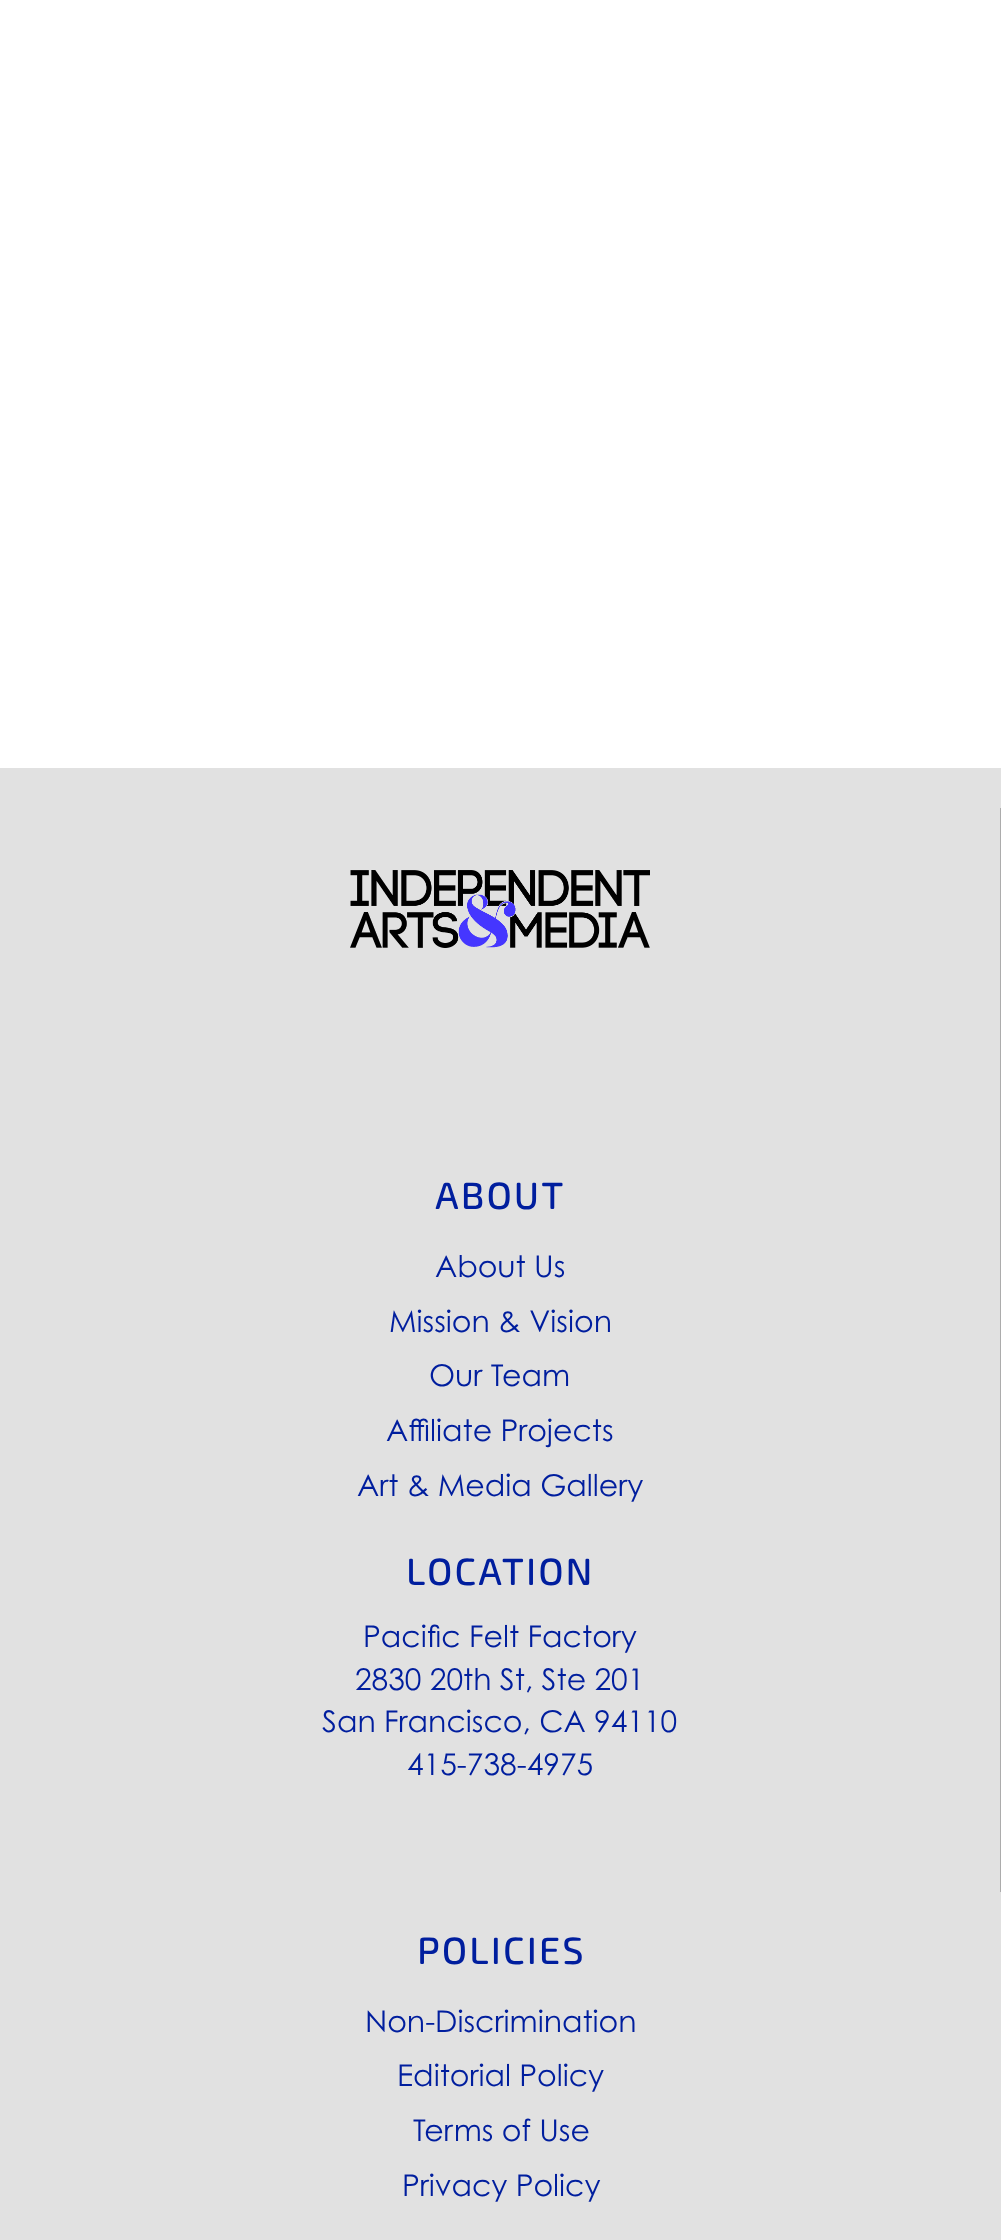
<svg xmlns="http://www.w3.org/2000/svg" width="1001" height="2240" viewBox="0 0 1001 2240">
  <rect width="100%" height="100%" fill="#fff"/>
  <path d="M0 768h1001v1472H0z" fill="#e1e1e1"/>
  <path d="M1000 808h1v1084H1000z" fill="#acacac"/>
  <image x="350" y="870" width="300" height="78" href="img/1.png"/>
  <text x="435" y="1209" font-family="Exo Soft" font-size="38" font-weight="500" letter-spacing="2" fill="#001e9e">ABOUT</text>
  <g font-family="Century Gothic" font-size="30" fill="#001e9e">
    <text x="435" y="1277">About Us</text>
    <text x="389" y="1332">Mission &amp; Vision</text>
    <text x="429" y="1386">Our Team</text>
    <text x="386" y="1441">Affiliate Projects</text>
    <text x="357" y="1496">Art &amp; Media Gallery</text>
  </g>
  <text x="406" y="1585" font-family="Exo Soft" font-size="38" font-weight="500" letter-spacing="2" fill="#001e9e">LOCATION</text>
  <g font-family="Century Gothic" font-size="30" fill="#001e9e">
    <text x="363" y="1647">Pacific Felt Factory</text>
    <text x="355" y="1690">2830 20th St, Ste 201</text>
    <text x="322" y="1732">San Francisco, CA 94110</text>
    <text x="407" y="1775">415-738-4975</text>
  </g>
  <text x="417" y="1964" font-family="Exo Soft" font-size="38" font-weight="500" letter-spacing="2" fill="#001e9e">POLICIES</text>
  <g font-family="Century Gothic" font-size="30" fill="#001e9e">
    <text x="365" y="2032">Non-Discrimination</text>
    <text x="397" y="2086">Editorial Policy</text>
    <text x="413" y="2141">Terms of Use</text>
    <text x="402" y="2196">Privacy Policy</text>
  </g>
</svg>
